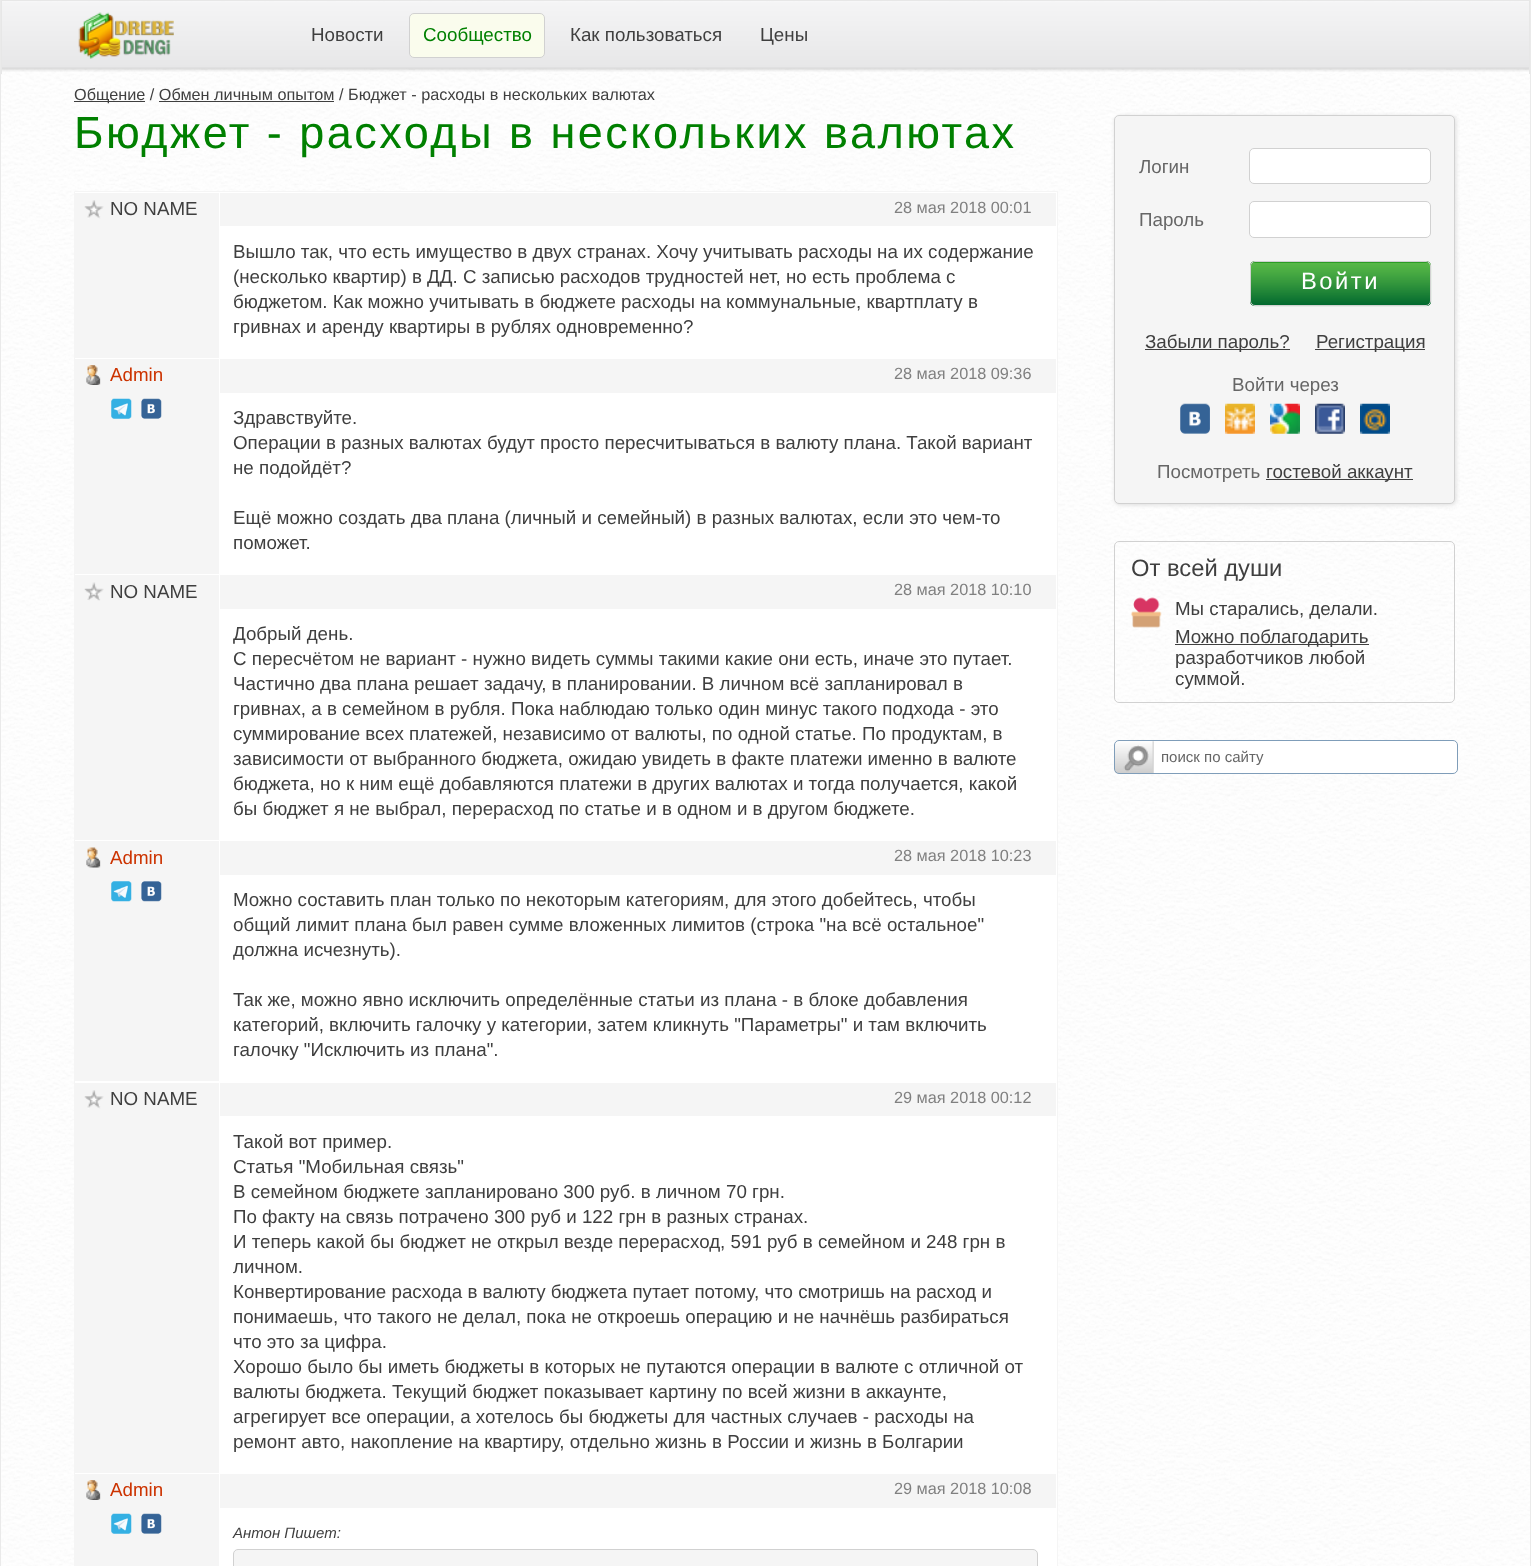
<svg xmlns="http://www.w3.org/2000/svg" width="1531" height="1566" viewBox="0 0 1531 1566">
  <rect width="100%" height="100%" fill="#fff"/>
  <image x="1" y="1" width="1529" height="1565" href="img/1.png"/>
  <path d="M1530 0h1v1566H1530z" fill="#eaeaea"/>
  <path d="M0 0h1v1566H0z" fill="#eaeaea"/>
  <image x="2" y="1" width="1527" height="71" href="img/2.png"/>
  <path d="M1 0h1529v1H1z" fill="#e7e7e7"/>
  <path d="M1529 0h1v74H1529z" fill="#e7e7e7"/>
  <path d="M1 0h1v74H1z" fill="#e7e7e7"/>
  <image x="78" y="12" width="96" height="47" href="img/3.png"/>
  <rect x="409.5" y="13.5" width="135" height="44" rx="4.5" fill="#fafced" stroke="#d1d1d1"/>
  <path d="M74 101h71v1H74z" fill="#3f3f3f"/>
  <path d="M159 101h175v1H159z" fill="#3f3f3f"/>
  <path d="M74.5 191.5h983v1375H74.5z" fill="#fff" stroke="#f5f5f5"/>
  <path d="M75 193h144v165H75z" fill="#f5f5f5"/>
  <image x="84" y="200" width="20" height="19" href="img/4.png"/>
  <path d="M220 193h836v33H220z" fill="#f5f5f5"/>
  <path d="M75 359h144v215H75z" fill="#f5f5f5"/>
  <image x="86" y="365" width="15" height="20" href="img/5.png"/>
  <image x="111" y="398" width="21" height="21" href="img/6.png"/>
  <image x="141" y="398" width="21" height="21" href="img/7.png"/>
  <path d="M220 359h836v34H220z" fill="#f5f5f5"/>
  <path d="M75 575h144v265H75z" fill="#f5f5f5"/>
  <image x="84" y="582" width="20" height="19" href="img/8.png"/>
  <path d="M220 575h836v34H220z" fill="#f5f5f5"/>
  <path d="M75 841h144v240H75z" fill="#f5f5f5"/>
  <image x="86" y="847" width="15" height="21" href="img/9.png"/>
  <image x="111" y="881" width="21" height="21" href="img/10.png"/>
  <image x="141" y="881" width="21" height="21" href="img/11.png"/>
  <path d="M220 841h836v34H220z" fill="#f5f5f5"/>
  <path d="M75 1083h144v390H75z" fill="#f5f5f5"/>
  <image x="84" y="1090" width="20" height="19" href="img/4.png"/>
  <path d="M220 1083h836v33H220z" fill="#f5f5f5"/>
  <path d="M75 1474h144v92H75z" fill="#f5f5f5"/>
  <image x="86" y="1480" width="15" height="20" href="img/5.png"/>
  <image x="111" y="1513" width="21" height="21" href="img/6.png"/>
  <image x="141" y="1513" width="21" height="21" href="img/7.png"/>
  <path d="M220 1474h836v34H220z" fill="#f5f5f5"/>
  <rect x="233.5" y="1549.5" width="804" height="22" rx="4.5" fill="#f5f5f5" stroke="#d1d1d1"/>
  <image x="1095" y="74" width="362" height="718" href="img/12.png"/>
  <rect x="1115" y="116" width="341" height="389" rx="5" fill="#ddd" filter="blur(2px)"/>
  <rect x="1114.5" y="115.5" width="340" height="388" rx="4.5" fill="#f5f5f5" stroke="#d1d1d1"/>
  <rect x="1249.5" y="148.5" width="181" height="35" rx="4.5" fill="#fff" stroke="#d1d1d1"/>
  <rect x="1249.5" y="201.5" width="181" height="36" rx="4.5" fill="#fff" stroke="#d1d1d1"/>
  <rect x="1250" y="261" width="181" height="45" rx="5" fill="#008000"/>
  <image x="1250" y="262" width="182" height="45" href="img/13.png"/>
  <rect x="1250.5" y="261.5" width="180" height="44" rx="4.5" fill="none" stroke="#d1d1d1"/>
  <path d="M1145 349h145v1H1145z" fill="#3f3f3f"/>
  <path d="M1315 349h110v1H1315z" fill="#3f3f3f"/>
  <image x="1180" y="403" width="30" height="31" href="img/14.png"/>
  <image x="1225" y="403" width="30" height="31" href="img/15.png"/>
  <image x="1270" y="403" width="30" height="31" href="img/16.png"/>
  <image x="1315" y="403" width="30" height="31" href="img/17.png"/>
  <image x="1360" y="403" width="30" height="31" href="img/18.png"/>
  <path d="M1266 479h147v1H1266z" fill="#3f3f3f"/>
  <rect x="1114.5" y="541.5" width="340" height="161" rx="4.5" fill="none" stroke="#d1d1d1"/>
  <image x="1131" y="597" width="31" height="31" href="img/19.png"/>
  <path d="M1175 644h194v1H1175z" fill="#3f3f3f"/>
  <rect x="1114" y="740" width="344" height="34" rx="5" fill="#fff"/>
  <image x="1115" y="741" width="39" height="33" href="img/20.png"/>
  <rect x="1114.5" y="740.5" width="343" height="33" rx="4.5" fill="none" stroke="#7f9db9"/>
  <text x="311" y="41" font-family="Liberation Sans" font-size="18.75" fill="#3f3f3f">Новости</text>
  <text x="423" y="41" font-family="Liberation Sans" font-size="18.75" fill="#008000">Сообщество</text>
  <g font-family="Liberation Sans" font-size="18.75" fill="#3f3f3f">
    <text x="570" y="41">Как пользоваться</text>
    <text x="760" y="41">Цены</text>
  </g>
  <text x="74" y="100" font-family="Liberation Sans" font-size="16.25" fill="#3f3f3f">Общение / Обмен личным опытом / Бюджет - расходы в нескольких валютах</text>
  <text x="74" y="148" font-family="Liberation Sans" font-size="45" letter-spacing="2.5" fill="#008000">Бюджет - расходы в нескольких валютах</text>
  <text x="110" y="215" font-family="Liberation Sans" font-size="18.75" fill="#3f3f3f">NO NAME</text>
  <text x="894" y="213" font-family="Liberation Sans" font-size="16.25" fill="#808080">28 мая 2018 00:01</text>
  <g font-family="Liberation Sans" font-size="18.75" fill="#3f3f3f">
    <text x="233" y="258">Вышло так, что есть имущество в двух странах. Хочу учитывать расходы на их содержание</text>
    <text x="233" y="283">(несколько квартир) в ДД. С записью расходов трудностей нет, но есть проблема с</text>
    <text x="233" y="308">бюджетом. Как можно учитывать в бюджете расходы на коммунальные, квартплату в</text>
    <text x="233" y="333">гривнах и аренду квартиры в рублях одновременно?</text>
  </g>
  <text x="110" y="381" font-family="Liberation Sans" font-size="18.75" fill="#c30">Admin</text>
  <text x="894" y="379" font-family="Liberation Sans" font-size="16.25" fill="#808080">28 мая 2018 09:36</text>
  <g font-family="Liberation Sans" font-size="18.75" fill="#3f3f3f">
    <text x="233" y="424">Здравствуйте.</text>
    <text x="233" y="449">Операции в разных валютах будут просто пересчитываться в валюту плана. Такой вариант</text>
    <text x="233" y="474">не подойдёт?</text>
    <text x="233" y="524">Ещё можно создать два плана (личный и семейный) в разных валютах, если это чем-то</text>
    <text x="233" y="549">поможет.</text>
    <text x="110" y="598">NO NAME</text>
  </g>
  <text x="894" y="595" font-family="Liberation Sans" font-size="16.25" fill="#808080">28 мая 2018 10:10</text>
  <g font-family="Liberation Sans" font-size="18.75" fill="#3f3f3f">
    <text x="233" y="640">Добрый день.</text>
    <text x="233" y="665">С пересчётом не вариант - нужно видеть суммы такими какие они есть, иначе это путает.</text>
    <text x="233" y="690">Частично два плана решает задачу, в планировании. В личном всё запланировал в</text>
    <text x="233" y="715">гривнах, а в семейном в рубля. Пока наблюдаю только один минус такого подхода - это</text>
    <text x="233" y="740">суммирование всех платежей, независимо от валюты, по одной статье. По продуктам, в</text>
    <text x="233" y="765">зависимости от выбранного бюджета, ожидаю увидеть в факте платежи именно в валюте</text>
    <text x="233" y="790">бюджета, но к ним ещё добавляются платежи в других валютах и тогда получается, какой</text>
    <text x="233" y="815">бы бюджет я не выбрал, перерасход по статье и в одном и в другом бюджете.</text>
  </g>
  <text x="110" y="864" font-family="Liberation Sans" font-size="18.75" fill="#c30">Admin</text>
  <text x="894" y="861" font-family="Liberation Sans" font-size="16.25" fill="#808080">28 мая 2018 10:23</text>
  <g font-family="Liberation Sans" font-size="18.75" fill="#3f3f3f">
    <text x="233" y="906">Можно составить план только по некоторым категориям, для этого добейтесь, чтобы</text>
    <text x="233" y="931">общий лимит плана был равен сумме вложенных лимитов (строка "на всё остальное"</text>
    <text x="233" y="956">должна исчезнуть).</text>
    <text x="233" y="1006">Так же, можно явно исключить определённые статьи из плана - в блоке добавления</text>
    <text x="233" y="1031">категорий, включить галочку у категории, затем кликнуть "Параметры" и там включить</text>
    <text x="233" y="1056">галочку "Исключить из плана".</text>
    <text x="110" y="1105">NO NAME</text>
  </g>
  <text x="894" y="1103" font-family="Liberation Sans" font-size="16.25" fill="#808080">29 мая 2018 00:12</text>
  <g font-family="Liberation Sans" font-size="18.75" fill="#3f3f3f">
    <text x="233" y="1148">Такой вот пример.</text>
    <text x="233" y="1173">Статья "Мобильная связь"</text>
    <text x="233" y="1198">В семейном бюджете запланировано 300 руб. в личном 70 грн.</text>
    <text x="233" y="1223">По факту на связь потрачено 300 руб и 122 грн в разных странах.</text>
    <text x="233" y="1248">И теперь какой бы бюджет не открыл везде перерасход, 591 руб в семейном и 248 грн в</text>
    <text x="233" y="1273">личном.</text>
    <text x="233" y="1298">Конвертирование расхода в валюту бюджета путает потому, что смотришь на расход и</text>
    <text x="233" y="1323">понимаешь, что такого не делал, пока не откроешь операцию и не начнёшь разбираться</text>
    <text x="233" y="1348">что это за цифра.</text>
    <text x="233" y="1373">Хорошо было бы иметь бюджеты в которых не путаются операции в валюте с отличной от</text>
    <text x="233" y="1398">валюты бюджета. Текущий бюджет показывает картину по всей жизни в аккаунте,</text>
    <text x="233" y="1423">агрегирует все операции, а хотелось бы бюджеты для частных случаев - расходы на</text>
    <text x="233" y="1448">ремонт авто, накопление на квартиру, отдельно жизнь в России и жизнь в Болгарии</text>
  </g>
  <text x="110" y="1496" font-family="Liberation Sans" font-size="18.75" fill="#c30">Admin</text>
  <text x="894" y="1494" font-family="Liberation Sans" font-size="16.25" fill="#808080">29 мая 2018 10:08</text>
  <text x="233" y="1538" font-family="Liberation Sans" font-size="15" font-style="italic" fill="#3f3f3f">Антон Пишет:</text>
  <g font-family="Liberation Sans" font-size="18.75" fill="#666">
    <text x="1139" y="173">Логин</text>
    <text x="1139" y="226">Пароль</text>
  </g>
  <text x="1301" y="289" font-family="Liberation Sans" font-size="23.75" letter-spacing="2.5" fill="#fff">Войти</text>
  <g font-family="Liberation Sans" font-size="18.75" fill="#3f3f3f">
    <text x="1145" y="348">Забыли пароль?</text>
    <text x="1316" y="348">Регистрация</text>
  </g>
  <g font-family="Liberation Sans" font-size="18.75" fill="#666">
    <text x="1232" y="391">Войти через</text>
    <text x="1157" y="478">Посмотреть</text>
  </g>
  <text x="1266" y="478" font-family="Liberation Sans" font-size="18.75" fill="#3f3f3f">гостевой аккаунт</text>
  <text x="1131" y="576" font-family="Liberation Sans" font-size="23.75" fill="#3f3f3f">От всей души</text>
  <g font-family="Liberation Sans" font-size="18.75" fill="#3f3f3f">
    <text x="1175" y="615">Мы старались, делали.</text>
    <text x="1175" y="643">Можно поблагодарить</text>
    <text x="1175" y="664">разработчиков любой</text>
    <text x="1175" y="685">суммой.</text>
  </g>
  <text x="1161" y="762" font-family="Liberation Sans" font-size="15" fill="#666">поиск по сайту</text>
</svg>
